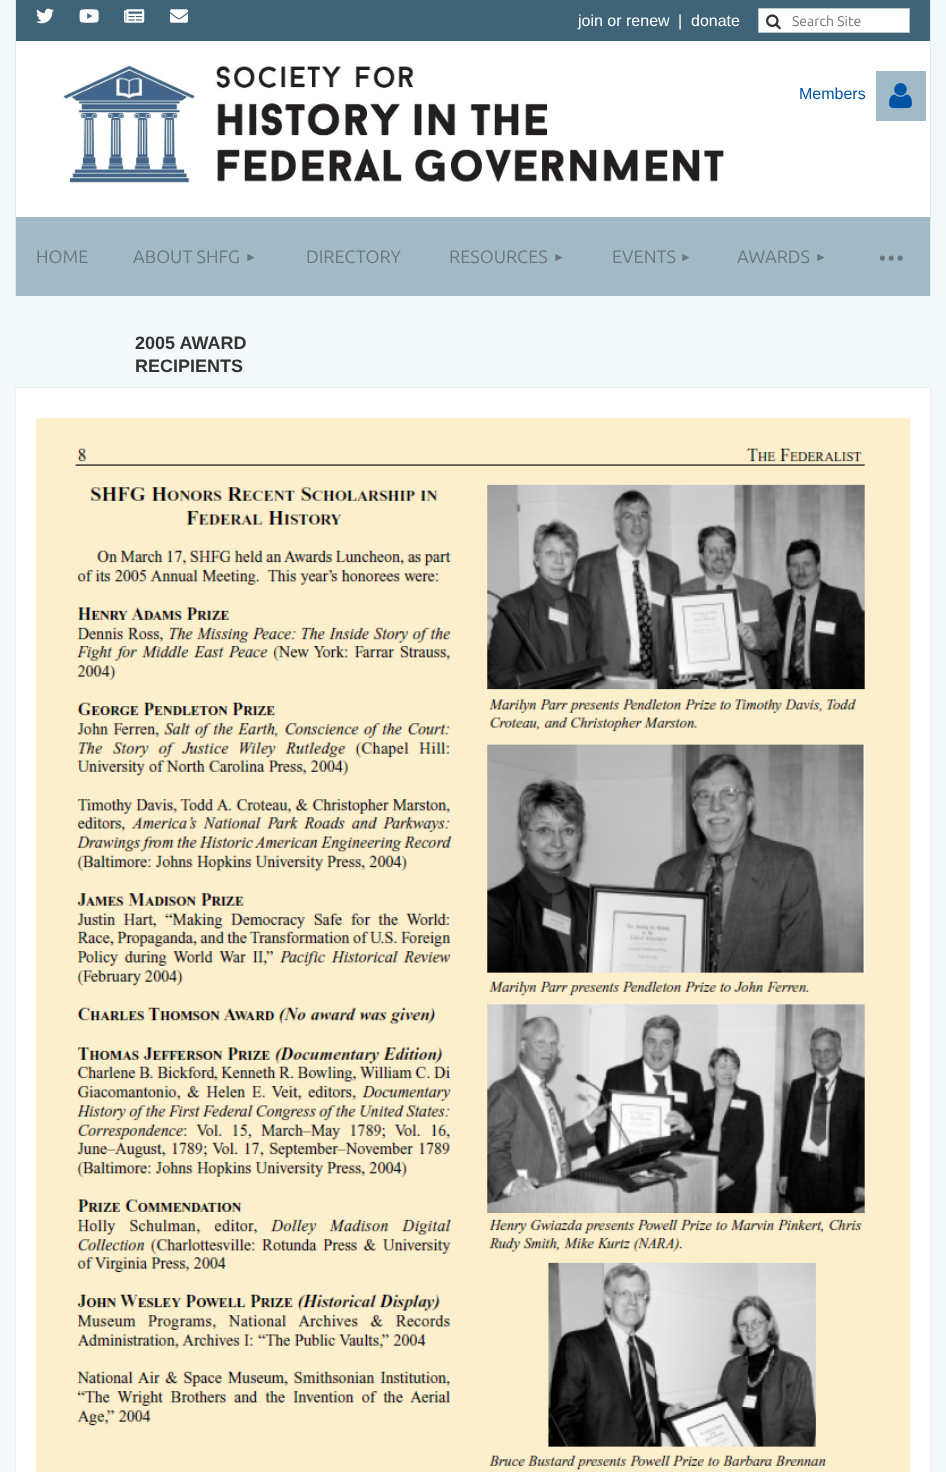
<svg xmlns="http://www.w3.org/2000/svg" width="946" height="1472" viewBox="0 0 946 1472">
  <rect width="100%" height="100%" fill="#f3f8fa"/>
  <path d="M16 41h914v176H16z" fill="#fff"/>
  <path d="M930 0h1v296H930z" fill="#e2e9ec"/>
  <path d="M15 0h1v296H15z" fill="#e2e9ec"/>
  <path d="M16 0h914v41H16z" fill="#3f6478"/>
  <image x="36" y="8" width="18" height="16" href="img/1.png"/>
  <image x="79" y="9" width="20" height="14" href="img/2.png"/>
  <image x="124" y="9" width="21" height="14" href="img/3.png"/>
  <image x="170" y="9" width="18" height="14" href="img/4.png"/>
  <path d="M758.5 8.5h151v24H758.5z" fill="#fff" stroke="#b8c6cd"/>
  <image x="766" y="14" width="15" height="16" href="img/5.png"/>
  <image x="62" y="64" width="662" height="119" href="img/6.png"/>
  <path d="M876 71h50v50H876z" fill="#a0bac7"/>
  <image x="889" y="83" width="23" height="26" href="img/7.png"/>
  <path d="M16 217h914v79H16z" fill="#a0bac7"/>
  <path d="M15.5 387.5h915v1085H15.5z" fill="#fff" stroke="#eee"/>
  <image x="36" y="418" width="874" height="1054" href="img/8.png"/>
  <g font-family="Liberation Sans" font-size="16" fill="#fff">
    <text x="578" y="26">join or renew</text>
    <text x="678" y="26">|</text>
    <text x="691" y="26">donate</text>
  </g>
  <text x="792" y="26" font-family="Ubuntu" font-size="14" fill="#757575">Search Site</text>
  <text x="799" y="99" font-family="Liberation Sans" font-size="16" fill="#0054a6">Members</text>
  <g font-family="Ubuntu" font-size="18" fill="#69777f">
    <text x="36" y="263">HOME</text>
    <text x="133" y="263">ABOUT SHFG</text>
  </g>
  <text x="245" y="261" font-family="Liberation Sans" font-size="12" fill="#69777f">►</text>
  <g font-family="Ubuntu" font-size="18" fill="#69777f">
    <text x="306" y="263">DIRECTORY</text>
    <text x="449" y="263">RESOURCES</text>
  </g>
  <text x="553" y="261" font-family="Liberation Sans" font-size="12" fill="#69777f">►</text>
  <text x="612" y="263" font-family="Ubuntu" font-size="18" fill="#69777f">EVENTS</text>
  <text x="680" y="261" font-family="Liberation Sans" font-size="12" fill="#69777f">►</text>
  <text x="737" y="263" font-family="Ubuntu" font-size="18" fill="#69777f">AWARDS</text>
  <text x="815" y="261" font-family="Liberation Sans" font-size="12" fill="#69777f">►</text>
  <text x="877" y="271" font-family="Ubuntu" font-size="44" letter-spacing="-2" fill="#69777f">···</text>
  <g font-family="Liberation Sans" font-size="18" font-weight="bold" fill="#333">
    <text x="135" y="349">2005 AWARD</text>
    <text x="135" y="372">RECIPIENTS</text>
  </g>
</svg>
